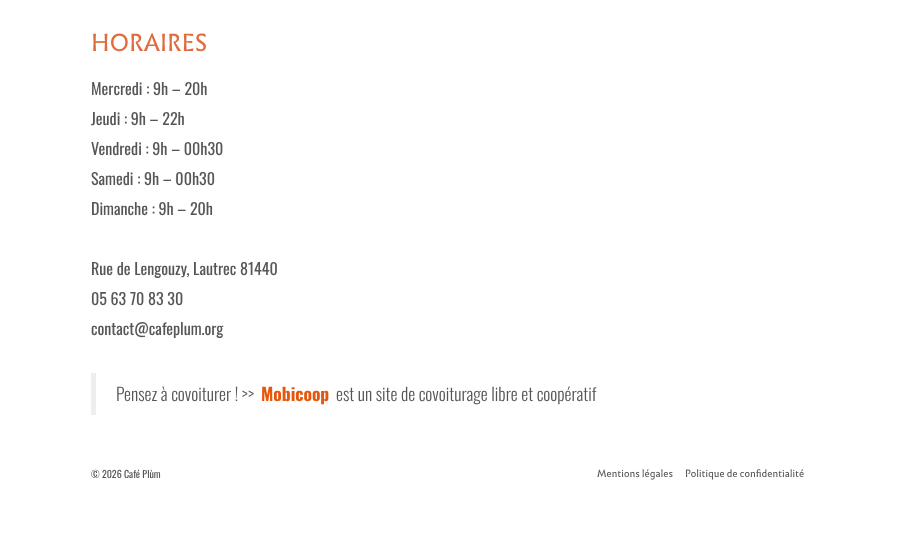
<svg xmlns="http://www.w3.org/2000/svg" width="901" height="533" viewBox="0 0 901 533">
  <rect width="100%" height="100%" fill="#fff"/>
  <image x="93" y="33" width="113" height="19" href="img/1.png"/>
  <path d="M91 373h5v42H91z" fill="#eee"/>
  <image x="597" y="469" width="76" height="11" href="img/2.png"/>
  <image x="685" y="469" width="119" height="11" href="img/3.png"/>
  <g font-family="Oswald" font-size="16" fill="#565656">
    <text x="91" y="95">Mercredi : 9h – 20h</text>
    <text x="91" y="125">Jeudi : 9h – 22h</text>
    <text x="91" y="155">Vendredi : 9h – 00h30</text>
    <text x="91" y="185">Samedi : 9h – 00h30</text>
    <text x="91" y="215">Dimanche : 9h – 20h</text>
    <text x="91" y="275">Rue de Lengouzy, Lautrec 81440</text>
    <text x="91" y="305">05 63 70 83 30</text>
    <text x="91" y="335">contact@cafeplum.org</text>
  </g>
  <text x="116" y="401" font-family="Oswald" font-size="17.5" font-weight="300" fill="#565656">Pensez à covoiturer ! &gt;&gt;</text>
  <text x="261" y="401" font-family="Oswald" font-size="17.5" font-weight="bold" fill="#e5570d">Mobicoop</text>
  <text x="336" y="401" font-family="Oswald" font-size="17.5" font-weight="300" fill="#565656">est un site de covoiturage libre et coopératif</text>
  <text x="91" y="478" font-family="Oswald" font-size="10" fill="#565656">© 2026 Café Plùm</text>
</svg>
